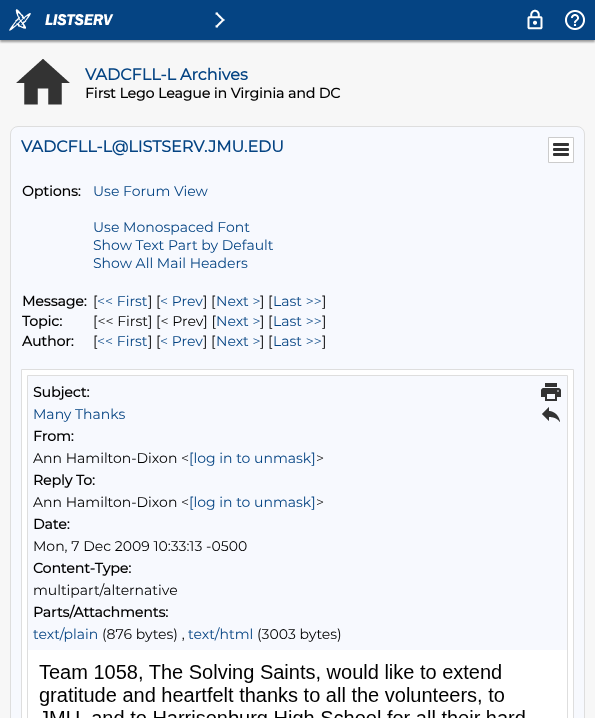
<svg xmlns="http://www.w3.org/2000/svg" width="595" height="718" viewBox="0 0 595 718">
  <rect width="100%" height="100%" fill="#f7f7f7"/>
  <path d="M0 2h595v40H0z" fill="#999" filter="blur(1px)"/>
  <path d="M0 0h595v40H0z" fill="#054483"/>
  <image x="9" y="9" width="22" height="22" href="img/1.png"/>
  <image x="45" y="14" width="69" height="12" href="img/2.png"/>
  <image x="215" y="12" width="10" height="16" href="img/3.png"/>
  <image x="527" y="9" width="16" height="21" href="img/4.png"/>
  <image x="565" y="10" width="20" height="20" href="img/5.png"/>
  <image x="16" y="59" width="54" height="46" href="img/6.png"/>
  <rect x="10.5" y="126.5" width="574" height="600" rx="7.5" fill="#f7f9fe" stroke="#dedede"/>
  <path d="M548.5 137.5h25v25H548.5z" fill="#fff" stroke="#ccc"/>
  <image x="553" y="143" width="16" height="13" href="img/7.png"/>
  <path d="M21.5 369.5h552v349H21.5z" fill="none" stroke="#dedede"/>
  <path d="M22 370h551v348H22z" fill="#fff"/>
  <path d="M27.5 375.5h540v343H27.5z" fill="none" stroke="#dedede"/>
  <path d="M28 376h539v274H28z" fill="#f7f9fe"/>
  <image x="541" y="383" width="20" height="18" href="img/8.png"/>
  <image x="542" y="407" width="18" height="15" href="img/9.png"/>
  <image x="39" y="664" width="486" height="54" href="img/10.png"/>
  <text x="85" y="80" font-family="Montserrat" font-size="16" font-weight="bold" fill="#054483">VADCFLL-L Archives</text>
  <text x="85" y="98" font-family="Montserrat" font-size="14" font-weight="bold" fill="#000">First Lego League in Virginia and DC</text>
  <text x="21" y="152" font-family="Montserrat" font-size="16" font-weight="bold" fill="#054483">VADCFLL-L@LISTSERV.JMU.EDU</text>
  <text x="22" y="196" font-family="Montserrat" font-size="14" font-weight="bold" fill="#000">Options:</text>
  <g font-family="Montserrat" font-size="14" font-weight="100" fill="#054483">
    <text x="93" y="196">Use Forum View</text>
    <text x="93" y="232">Use Monospaced Font</text>
    <text x="93" y="250">Show Text Part by Default</text>
    <text x="93" y="268">Show All Mail Headers</text>
  </g>
  <text x="22" y="306" font-family="Montserrat" font-size="14" font-weight="bold" fill="#000">Message:</text>
  <text x="93" y="306" font-family="Montserrat" font-size="14" font-weight="100" fill="#000">[</text>
  <text x="97" y="306" font-family="Montserrat" font-size="14" font-weight="100" fill="#054483">&lt;&lt; First</text>
  <text x="148" y="306" font-family="Montserrat" font-size="14" font-weight="100" fill="#000">] [</text>
  <text x="160" y="306" font-family="Montserrat" font-size="14" font-weight="100" fill="#054483">&lt; Prev</text>
  <text x="203" y="306" font-family="Montserrat" font-size="14" font-weight="100" fill="#000">] [</text>
  <text x="216" y="306" font-family="Montserrat" font-size="14" font-weight="100" fill="#054483">Next &gt;</text>
  <text x="260" y="306" font-family="Montserrat" font-size="14" font-weight="100" fill="#000">] [</text>
  <text x="273" y="306" font-family="Montserrat" font-size="14" font-weight="100" fill="#054483">Last &gt;&gt;</text>
  <text x="322" y="306" font-family="Montserrat" font-size="14" font-weight="100" fill="#000">]</text>
  <text x="22" y="326" font-family="Montserrat" font-size="14" font-weight="bold" fill="#000">Topic:</text>
  <text x="93" y="326" font-family="Montserrat" font-size="14" font-weight="100" fill="#000">[&lt;&lt; First] [&lt; Prev] [</text>
  <text x="216" y="326" font-family="Montserrat" font-size="14" font-weight="100" fill="#054483">Next &gt;</text>
  <text x="260" y="326" font-family="Montserrat" font-size="14" font-weight="100" fill="#000">] [</text>
  <text x="273" y="326" font-family="Montserrat" font-size="14" font-weight="100" fill="#054483">Last &gt;&gt;</text>
  <text x="322" y="326" font-family="Montserrat" font-size="14" font-weight="100" fill="#000">]</text>
  <text x="22" y="346" font-family="Montserrat" font-size="14" font-weight="bold" fill="#000">Author:</text>
  <text x="93" y="346" font-family="Montserrat" font-size="14" font-weight="100" fill="#000">[</text>
  <text x="97" y="346" font-family="Montserrat" font-size="14" font-weight="100" fill="#054483">&lt;&lt; First</text>
  <text x="148" y="346" font-family="Montserrat" font-size="14" font-weight="100" fill="#000">] [</text>
  <text x="160" y="346" font-family="Montserrat" font-size="14" font-weight="100" fill="#054483">&lt; Prev</text>
  <text x="203" y="346" font-family="Montserrat" font-size="14" font-weight="100" fill="#000">] [</text>
  <text x="216" y="346" font-family="Montserrat" font-size="14" font-weight="100" fill="#054483">Next &gt;</text>
  <text x="260" y="346" font-family="Montserrat" font-size="14" font-weight="100" fill="#000">] [</text>
  <text x="273" y="346" font-family="Montserrat" font-size="14" font-weight="100" fill="#054483">Last &gt;&gt;</text>
  <text x="322" y="346" font-family="Montserrat" font-size="14" font-weight="100" fill="#000">]</text>
  <text x="33" y="397" font-family="Montserrat" font-size="14" font-weight="bold" fill="#000">Subject:</text>
  <text x="33" y="419" font-family="Montserrat" font-size="14" font-weight="100" fill="#054483">Many Thanks</text>
  <text x="33" y="441" font-family="Montserrat" font-size="14" font-weight="bold" fill="#000">From:</text>
  <text x="33" y="463" font-family="Montserrat" font-size="14" font-weight="100" fill="#000">Ann Hamilton-Dixon &lt;</text>
  <text x="189" y="463" font-family="Montserrat" font-size="14" font-weight="100" fill="#054483">[log in to unmask]</text>
  <text x="316" y="463" font-family="Montserrat" font-size="14" font-weight="100" fill="#000">&gt;</text>
  <text x="33" y="485" font-family="Montserrat" font-size="14" font-weight="bold" fill="#000">Reply To:</text>
  <text x="33" y="507" font-family="Montserrat" font-size="14" font-weight="100" fill="#000">Ann Hamilton-Dixon &lt;</text>
  <text x="189" y="507" font-family="Montserrat" font-size="14" font-weight="100" fill="#054483">[log in to unmask]</text>
  <text x="316" y="507" font-family="Montserrat" font-size="14" font-weight="100" fill="#000">&gt;</text>
  <text x="33" y="529" font-family="Montserrat" font-size="14" font-weight="bold" fill="#000">Date:</text>
  <text x="33" y="551" font-family="Montserrat" font-size="14" font-weight="100" fill="#000">Mon, 7 Dec 2009 10:33:13 -0500</text>
  <text x="33" y="573" font-family="Montserrat" font-size="14" font-weight="bold" fill="#000">Content-Type:</text>
  <text x="33" y="595" font-family="Montserrat" font-size="14" font-weight="100" fill="#000">multipart/alternative</text>
  <text x="33" y="617" font-family="Montserrat" font-size="14" font-weight="bold" fill="#000">Parts/Attachments:</text>
  <text x="33" y="639" font-family="Montserrat" font-size="14" font-weight="100" fill="#054483">text/plain</text>
  <text x="102" y="639" font-family="Montserrat" font-size="14" font-weight="100" fill="#000">(876 bytes) ,</text>
  <text x="188" y="639" font-family="Montserrat" font-size="14" font-weight="100" fill="#054483">text/html</text>
  <text x="257" y="639" font-family="Montserrat" font-size="14" font-weight="100" fill="#000">(3003 bytes)</text>
</svg>
